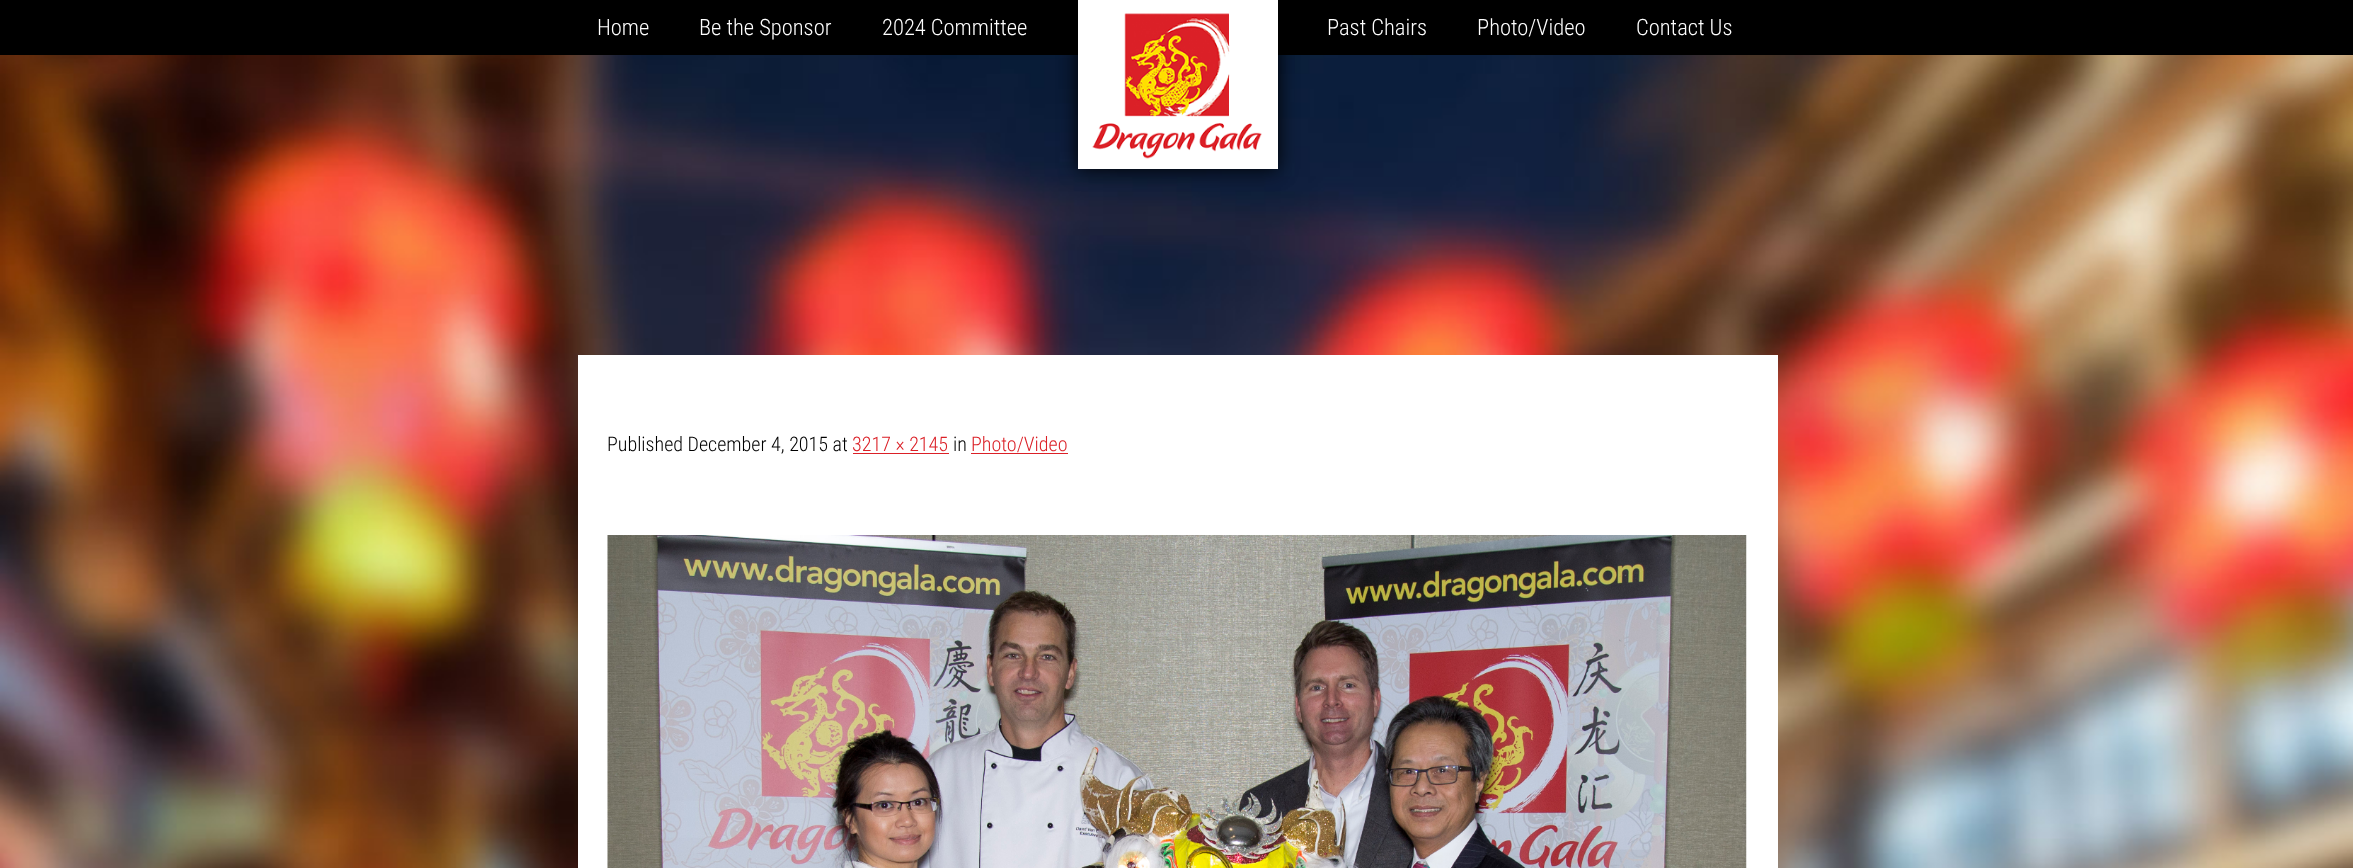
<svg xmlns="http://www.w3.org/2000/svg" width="2353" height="868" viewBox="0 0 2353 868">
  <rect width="100%" height="100%" fill="#fff"/>
  <image x="0" y="55" width="2353" height="813" href="img/1.png"/>
  <path d="M0 0h2353v55H0z" fill="#000"/>
  <path d="M1078 -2h200v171H1078z" fill="#000" filter="blur(9.5px)"/>
  <path d="M1078 0h200v169H1078z" fill="#fff"/>
  <image x="1092" y="13" width="170" height="146" href="img/2.png"/>
  <path d="M578 355h1200v513H578z" fill="#fff"/>
  <path d="M853 453h96v1H853z" fill="#db2027"/>
  <path d="M971 453h97v1H971z" fill="#db2027"/>
  <image x="607" y="535" width="1140" height="333" href="img/3.png"/>
  <g font-family="Roboto Condensed" font-size="22.5" font-weight="300" fill="#fff">
    <text x="597" y="35">Home</text>
    <text x="699" y="35">Be the Sponsor</text>
    <text x="882" y="35">2024 Committee</text>
    <text x="1327" y="35">Past Chairs</text>
    <text x="1477" y="35">Photo/Video</text>
    <text x="1636" y="35">Contact Us</text>
  </g>
  <text x="607" y="451" font-family="Roboto Condensed" font-size="20" font-weight="300" fill="#000">Published December 4, 2015 at</text>
  <text x="852" y="451" font-family="Roboto Condensed" font-size="20" font-weight="300" fill="#db2027">3217 × 2145</text>
  <text x="953" y="451" font-family="Roboto Condensed" font-size="20" font-weight="300" fill="#000">in</text>
  <text x="971" y="451" font-family="Roboto Condensed" font-size="20" font-weight="300" fill="#db2027">Photo/Video</text>
</svg>
